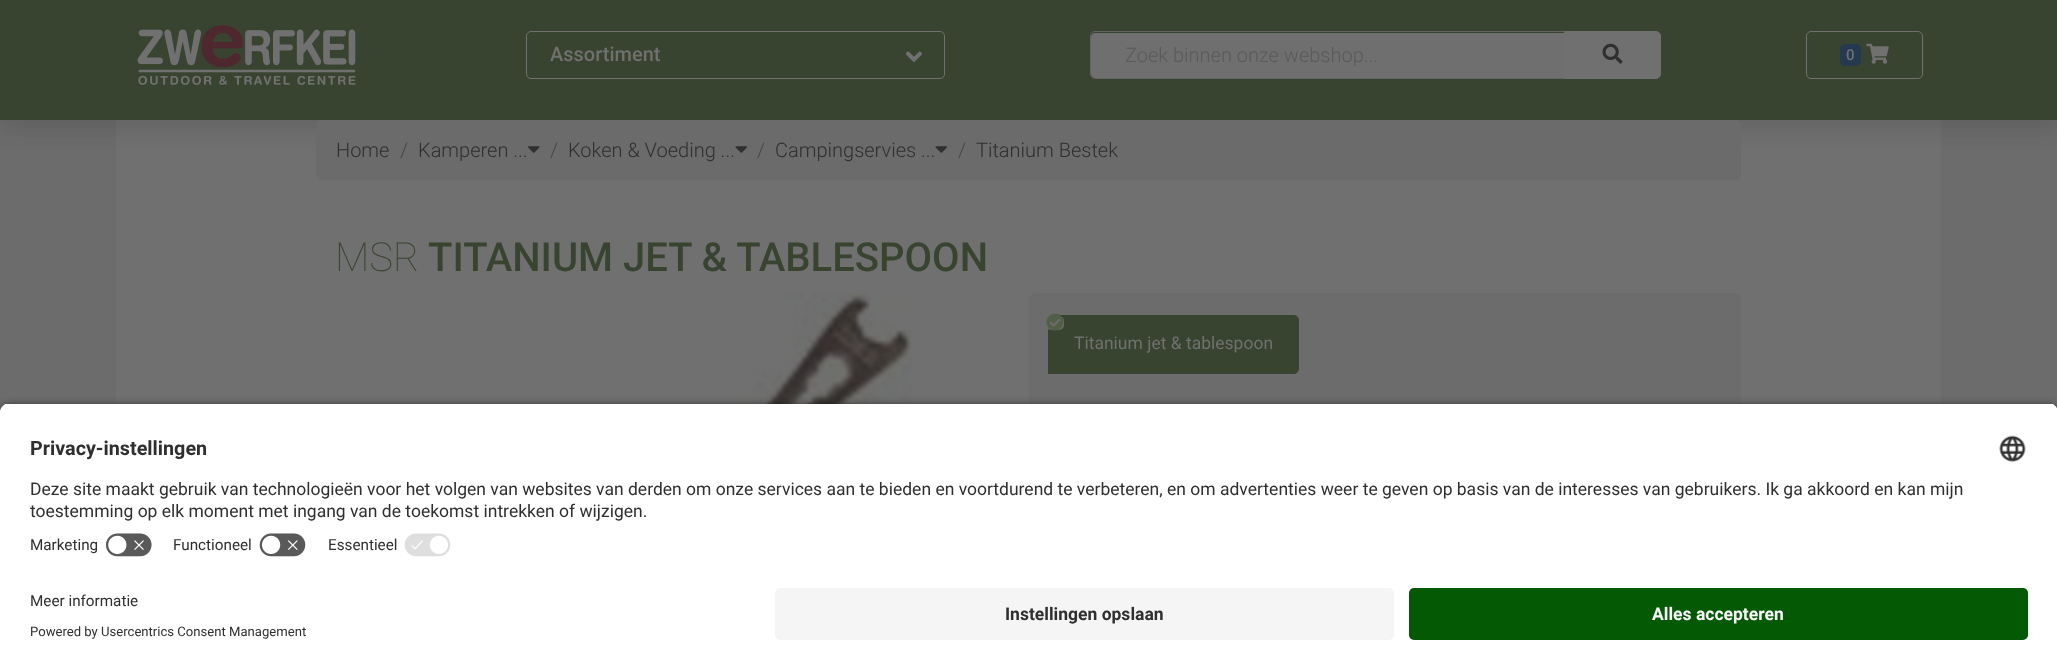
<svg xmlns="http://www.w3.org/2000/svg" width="2057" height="670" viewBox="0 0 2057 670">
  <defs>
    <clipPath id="clip1"><path d="M10 403H2048C2053.5 403 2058 407.5 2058 413V578H0V413C0 407.5 4.5 403 10 403Z"/></clipPath>
  </defs>
  <rect width="100%" height="100%" fill="#6c6c6c"/>
  <path d="M116 120h1825v284H116z" fill="#707070"/>
  <path d="M0 10h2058v120H0z" fill="#24242426" filter="blur(10px)"/>
  <path d="M0 0h2057v120H0z" fill="#38442f"/>
  <image x="137" y="25" width="219" height="60" href="img/1.png"/>
  <rect x="526.5" y="31.5" width="418" height="47" rx="4.5" fill="none" stroke="#707070"/>
  <image x="905" y="51" width="18" height="11" href="img/2.png"/>
  <path d="M1095 33H1564V78H1095C1093 78 1091 76 1091 74V37C1091 35 1093 33 1095 33Z" fill="#6f6f6f"/>
  <path d="M1095 31.5H1564.5V78.5H1095C1092.5 78.5 1090.5 76.5 1090.5 74V36C1090.5 33.5 1092.5 31.5 1095 31.5Z" fill="none" stroke="#636363"/>
  <path d="M1564.5 31.5H1656C1658.5 31.5 1660.5 33.5 1660.5 36V74C1660.5 76.5 1658.5 78.5 1656 78.5H1564.5Z" fill="#707070" stroke="#707070"/>
  <image x="1602" y="43" width="21" height="21" href="img/3.png"/>
  <rect x="1806.5" y="31.5" width="116" height="47" rx="4.5" fill="none" stroke="#707070"/>
  <rect x="1840" y="44" width="21" height="22" rx="5" fill="#243a51"/>
  <image x="1866" y="43" width="23" height="21" href="img/4.png"/>
  <rect x="316" y="120" width="1425" height="60" rx="5" fill="#6b6b6b"/>
  <image x="528" y="146" width="12" height="7" href="img/5.png"/>
  <image x="735" y="146" width="12" height="7" href="img/6.png"/>
  <image x="935" y="146" width="12" height="7" href="img/6.png"/>
  <image x="432" y="293" width="481" height="111" href="img/7.png"/>
  <rect x="1029" y="293" width="712" height="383" rx="6" fill="#6c6c6c"/>
  <path d="M1052 315.5H1294C1296.5 315.5 1298.5 317.5 1298.5 320V369C1298.5 371.5 1296.5 373.5 1294 373.5H1048.5V319C1048.5 317 1050 315.5 1052 315.5Z" fill="#38442f" stroke="#38442f"/>
  <rect x="1046" y="316" width="18" height="14" rx="5" fill="#6c6c6c"/>
  <image x="1046" y="313" width="18" height="18" href="img/8.png"/>
  <rect y="406" width="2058" height="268" rx="10" fill="#000000cc" filter="blur(4.5px)"/>
  <g clip-path="url(#clip1)">
    <path d="M0 404h2057v174H0z" fill="#fff"/>
    <path d="M0 404h2057v124H0z" fill="#fff"/>
  </g>
  <image x="1999" y="435" width="27" height="27" href="img/9.png"/>
  <image x="105" y="532" width="48" height="25" href="img/10.png"/>
  <image x="259" y="533" width="47" height="24" href="img/11.png"/>
  <image x="404" y="533" width="47" height="24" href="img/12.png"/>
  <path d="M0 578h2057v92H0z" fill="#fff"/>
  <rect x="775" y="588" width="619" height="52" rx="5" fill="#f5f5f5"/>
  <rect x="1409" y="588" width="619" height="52" rx="5" fill="#045905"/>
  <text x="550" y="61" font-family="Roboto" font-size="20" font-weight="500" fill="#707070">Assortiment</text>
  <text x="1125" y="62" font-family="Roboto" font-size="20" font-weight="300" fill="#5a5a5a">Zoek binnen onze webshop...</text>
  <text x="1846" y="60" font-family="Roboto" font-size="15" font-weight="500" fill="#707070">0</text>
  <text x="336" y="157" font-family="Roboto" font-size="20" font-weight="300" fill="#2f2f2f">Home</text>
  <text x="400" y="157" font-family="Roboto" font-size="20" font-weight="300" fill="#474747">/</text>
  <text x="418" y="157" font-family="Roboto" font-size="20" font-weight="300" fill="#2f2f2f">Kamperen ...</text>
  <text x="550" y="157" font-family="Roboto" font-size="20" font-weight="300" fill="#474747">/</text>
  <text x="568" y="157" font-family="Roboto" font-size="20" font-weight="300" fill="#2f2f2f">Koken &amp; Voeding ...</text>
  <text x="757" y="157" font-family="Roboto" font-size="20" font-weight="300" fill="#474747">/</text>
  <text x="775" y="157" font-family="Roboto" font-size="20" font-weight="300" fill="#2f2f2f">Campingservies ...</text>
  <text x="958" y="157" font-family="Roboto" font-size="20" font-weight="300" fill="#474747">/</text>
  <text x="976" y="157" font-family="Roboto" font-size="20" font-weight="300" fill="#2f2f2f">Titanium Bestek</text>
  <text x="335" y="271" font-family="Roboto" font-size="40" font-weight="100" fill="#38442f">MSR</text>
  <text x="428" y="271" font-family="Roboto" font-size="40" font-weight="500" fill="#38442f">TITANIUM JET &amp; TABLESPOON</text>
  <text x="1074" y="349" font-family="Roboto" font-size="17.5" fill="#707070">Titanium jet &amp; tablespoon</text>
  <text x="30" y="455" font-family="Roboto" font-size="19.75" font-weight="bold" fill="#2f2f2f">Privacy-instellingen</text>
  <g font-family="Roboto" font-size="17.5" fill="#2f2f2f">
    <text x="30" y="495">Deze site maakt gebruik van technologieën voor het volgen van websites van derden om onze services aan te bieden en voortdurend te verbeteren, en om advertenties weer te geven op basis van de interesses van gebruikers. Ik ga akkoord en kan mijn</text>
    <text x="30" y="517">toestemming op elk moment met ingang van de toekomst intrekken of wijzigen.</text>
  </g>
  <g font-family="Roboto" font-size="15.25" fill="#2f2f2f">
    <text x="30" y="550">Marketing</text>
    <text x="173" y="550">Functioneel</text>
    <text x="328" y="550">Essentieel</text>
    <text x="30" y="606">Meer informatie</text>
  </g>
  <text x="30" y="636" font-family="Roboto" font-size="13.1" fill="#2f2f2f">Powered by Usercentrics Consent Management</text>
  <text x="1005" y="620" font-family="Roboto" font-size="17.5" font-weight="bold" fill="#2f2f2f">Instellingen opslaan</text>
  <text x="1652" y="620" font-family="Roboto" font-size="17.5" font-weight="bold" fill="#fafafa">Alles accepteren</text>
</svg>
